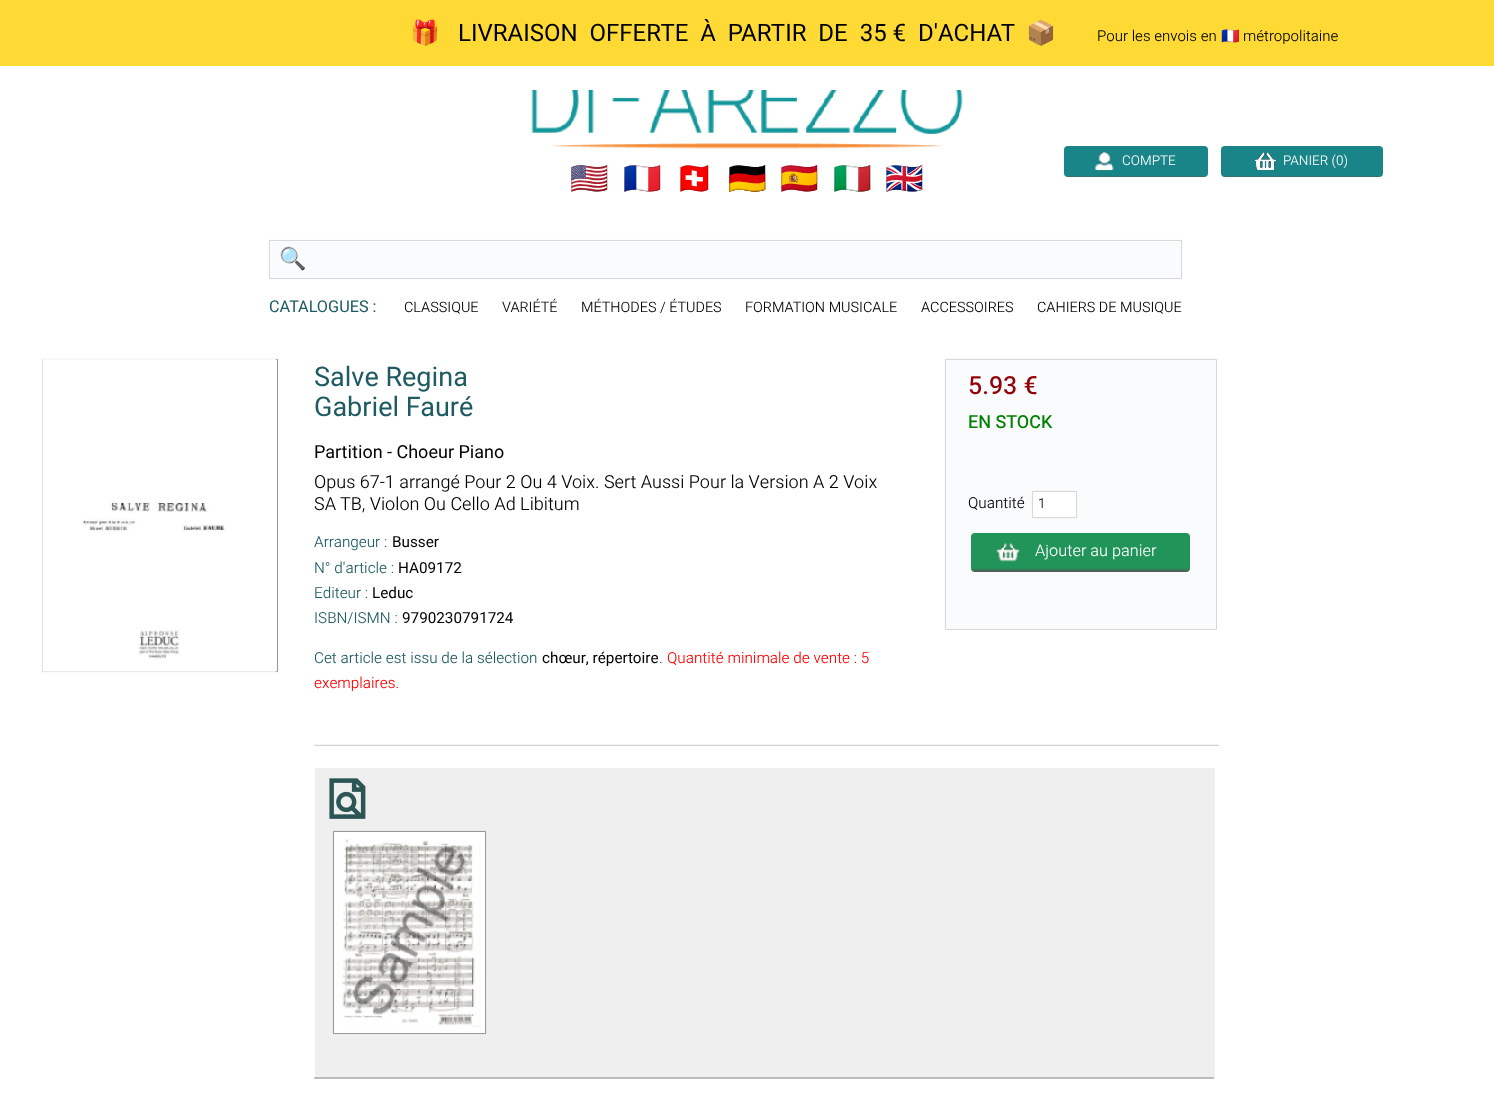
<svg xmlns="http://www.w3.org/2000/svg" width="1494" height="1098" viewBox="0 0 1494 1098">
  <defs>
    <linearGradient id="g1" gradientUnits="userSpaceOnUse" x1="1135" y1="145" x2="1135" y2="178"><stop offset="0.92" stop-color="#198589"/><stop offset="1" stop-color="#555"/></linearGradient>
    <linearGradient id="g2" gradientUnits="userSpaceOnUse" x1="1301" y1="145" x2="1301" y2="178"><stop offset="0.92" stop-color="#198589"/><stop offset="1" stop-color="#555"/></linearGradient>
    <linearGradient id="g3" gradientUnits="userSpaceOnUse" x1="1080" y1="532" x2="1080" y2="572"><stop offset="0.9" stop-color="#219459"/><stop offset="1" stop-color="#555"/></linearGradient>
  </defs>
  <rect width="100%" height="100%" fill="#fff"/>
  <path d="M0 0h1494v66H0z" fill="#ffda35"/>
  <image x="531" y="90" width="432" height="59" href="img/1.png"/>
  <rect x="1064" y="146" width="144" height="31" rx="4" fill="url(#g1)"/>
  <image x="1094" y="152" width="20" height="19" href="img/2.png"/>
  <rect x="1221" y="146" width="162" height="31" rx="4" fill="url(#g2)"/>
  <image x="1255" y="152" width="21" height="18" href="img/3.png"/>
  <path d="M269.45 240.45h912.1v38.1H269.45z" fill="#fafbfc" stroke="#d1d1d1" stroke-width="0.9"/>
  <path d="M42.45 359.45h235.1v312.1H42.45z" fill="none" stroke="#888" stroke-width="0.9"/>
  <image x="42" y="359" width="235" height="313" href="img/4.png"/>
  <path d="M945.45 359.45h271.1v270.1H945.45z" fill="#fafbfc" stroke="#d1d1d1" stroke-width="0.9"/>
  <path d="M1032.45 491.45h44.1v26.1H1032.45z" fill="#fff" stroke="#d1d1d1" stroke-width="0.9"/>
  <rect x="971" y="533" width="219" height="39" rx="4" fill="url(#g3)"/>
  <image x="996" y="542" width="24" height="20" href="img/5.png"/>
  <image x="313" y="744" width="906" height="2" href="img/6.png"/>
  <path d="M315 768h900v311H315z" fill="#efefef"/>
  <rect x="314" y="1077" width="900" height="2" rx="1" fill="#bbb"/>
  <image x="329" y="778" width="37" height="41" href="img/7.png"/>
  <path d="M333.45 831.45h152.1v202.1H333.45z" fill="#fff" stroke="#888" stroke-width="0.9"/>
  <image x="337" y="839" width="144" height="188" href="img/8.png"/>
  <text x="410" y="41" font-family="Noto Color Emoji" font-size="24" fill="#000">🎁</text>
  <text x="458" y="41" font-family="Heebo" font-size="24" fill="#000" xml:space="preserve">LIVRAISON  OFFERTE  À  PARTIR  DE  35 €  D'ACHAT</text>
  <text x="1026" y="41" font-family="Noto Color Emoji" font-size="24" fill="#000">📦</text>
  <text x="1097" y="41" font-family="Heebo" font-size="15" font-weight="300" fill="#000">Pour les envois en</text>
  <text x="1221" y="41" font-family="Noto Color Emoji" font-size="15" fill="#000">🇫🇷</text>
  <text x="1243" y="41" font-family="Heebo" font-size="15" font-weight="300" fill="#000">métropolitaine</text>
  <g font-family="Noto Color Emoji" font-size="31" fill="#999">
    <text x="570" y="189">🇺🇲</text>
    <text x="623" y="189">🇲🇫</text>
    <text x="675" y="189">🇨🇭</text>
    <text x="728" y="189">🇩🇪</text>
    <text x="780" y="189">🇪🇸</text>
    <text x="833" y="189">🇮🇹</text>
    <text x="885" y="189">🇬🇧</text>
  </g>
  <g font-family="Heebo" font-size="13.5" font-weight="300" fill="#fff">
    <text x="1122" y="165">COMPTE</text>
    <text x="1283" y="165">PANIER (0)</text>
  </g>
  <text x="279" y="266" font-family="Noto Color Emoji" font-size="22" fill="#757575">🔍</text>
  <text x="269" y="312" font-family="Heebo" font-size="16.25" fill="#1d5a62">CATALOGUES :</text>
  <g font-family="Heebo" font-size="14.4" font-weight="300" fill="#000">
    <text x="404" y="312">CLASSIQUE</text>
    <text x="502" y="312">VARIÉTÉ</text>
    <text x="581" y="312">MÉTHODES / ÉTUDES</text>
    <text x="745" y="312">FORMATION MUSICALE</text>
    <text x="921" y="312">ACCESSOIRES</text>
    <text x="1037" y="312">CAHIERS DE MUSIQUE</text>
  </g>
  <g font-family="Heebo" font-size="27" fill="#1d5a62">
    <text x="314" y="386">Salve Regina</text>
    <text x="314" y="416">Gabriel Fauré</text>
  </g>
  <text x="314" y="458" font-family="Heebo" font-size="18" fill="#000">Partition - Choeur Piano</text>
  <g font-family="Heebo" font-size="18" font-weight="300" fill="#000">
    <text x="314" y="488">Opus 67-1 arrangé Pour 2 Ou 4 Voix. Sert Aussi Pour la Version A 2 Voix</text>
    <text x="314" y="510">SA TB, Violon Ou Cello Ad Libitum</text>
  </g>
  <text x="314" y="547" font-family="Heebo" font-size="15.25" font-weight="300" fill="#1d5a62">Arrangeur :</text>
  <text x="392" y="547" font-family="Heebo" font-size="15.25" fill="#000">Busser</text>
  <text x="314" y="573" font-family="Heebo" font-size="15.25" font-weight="300" fill="#1d5a62">N° d'article :</text>
  <text x="398" y="573" font-family="Heebo" font-size="15.25" fill="#000">HA09172</text>
  <text x="314" y="598" font-family="Heebo" font-size="15.25" font-weight="300" fill="#1d5a62">Editeur :</text>
  <text x="372" y="598" font-family="Heebo" font-size="15.25" fill="#000">Leduc</text>
  <text x="314" y="623" font-family="Heebo" font-size="15.25" font-weight="300" fill="#1d5a62">ISBN/ISMN :</text>
  <text x="402" y="623" font-family="Heebo" font-size="15.25" fill="#000">9790230791724</text>
  <text x="314" y="663" font-family="Heebo" font-size="15.25" font-weight="300" fill="#1d5a62">Cet article est issu de la sélection</text>
  <text x="542" y="663" font-family="Heebo" font-size="15.25" fill="#000">chœur, répertoire</text>
  <text x="659" y="663" font-family="Heebo" font-size="15.25" font-weight="300" fill="#1d5a62">.</text>
  <g font-family="Heebo" font-size="15.25" font-weight="300" fill="#f00">
    <text x="667" y="663">Quantité minimale de vente : 5</text>
    <text x="314" y="688">exemplaires.</text>
  </g>
  <text x="968" y="394" font-family="Heebo" font-size="25" font-weight="500" fill="#900309">5.93 €</text>
  <text x="968" y="428" font-family="Heebo" font-size="18" font-weight="500" fill="#008000">EN STOCK</text>
  <text x="968" y="508" font-family="Heebo" font-size="15.25" font-weight="300" fill="#000">Quantité</text>
  <text x="1038" y="508" font-family="Heebo" font-size="13.5" font-weight="300" fill="#000">1</text>
  <text x="1035" y="556" font-family="Heebo" font-size="16.25" font-weight="300" fill="#fff">Ajouter au panier</text>
</svg>
